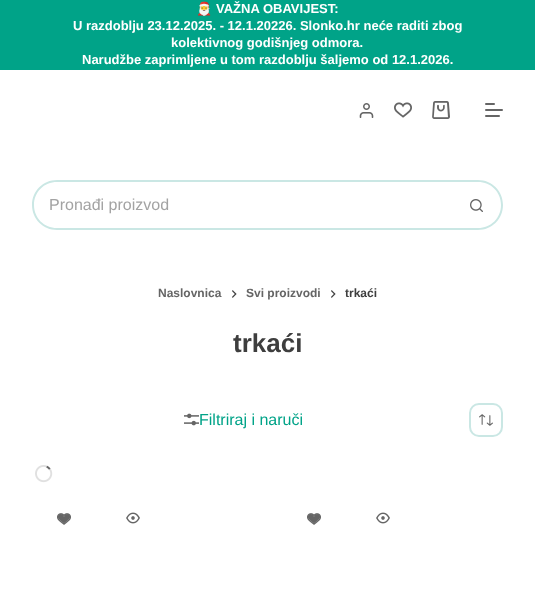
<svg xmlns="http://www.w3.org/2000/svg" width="535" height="590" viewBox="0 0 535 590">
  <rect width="100%" height="100%" fill="#fff"/>
  <path d="M0 0h535v70H0z" fill="#00a388"/>
  <image x="359" y="103" width="15" height="15" href="img/1.png"/>
  <image x="394" y="102" width="18" height="16" href="img/2.png"/>
  <image x="432" y="101" width="18" height="18" href="img/3.png"/>
  <rect x="485" y="103" width="10" height="2" rx="1" fill="#656565"/>
  <rect x="485" y="109" width="18" height="2" rx="1" fill="#656565"/>
  <rect x="485" y="115" width="15" height="2" rx="1" fill="#656565"/>
  <path d="M57 180H453V230H57C43 230 32 219 32 205C32 191 43 180 57 180ZM57 182H453V228H57C44 228 34 218 34 205C34 192 44 182 57 182Z" fill="#cae7e4" fill-rule="evenodd"/>
  <path d="M453 180H478C492 180 503 191 503 205C503 219 492 230 478 230H453ZM453 182H478C491 182 501 192 501 205C501 218 491 228 478 228H453Z" fill="#cae7e4" fill-rule="evenodd"/>
  <image x="470" y="199" width="13" height="13" href="img/4.png"/>
  <image x="232" y="290" width="5" height="8" href="img/5.png"/>
  <image x="331" y="290" width="5" height="8" href="img/5.png"/>
  <image x="184" y="413" width="15" height="13" href="img/6.png"/>
  <rect x="470" y="404" width="32" height="32" rx="9" fill="none" stroke="#cae7e4" stroke-width="2"/>
  <image x="479" y="414" width="14" height="12" href="img/7.png"/>
  <image x="35" y="465" width="18" height="18" href="img/8.png"/>
  <image x="57" y="513" width="14" height="12" href="img/9.png"/>
  <image x="126" y="512" width="14" height="12" href="img/10.png"/>
  <image x="307" y="513" width="14" height="12" href="img/9.png"/>
  <image x="376" y="512" width="14" height="12" href="img/10.png"/>
  <text x="196" y="13" font-family="Noto Color Emoji" font-size="13" font-weight="bold" fill="#fff">🎅</text>
  <g font-family="Liberation Sans" font-size="13" font-weight="bold" fill="#fff">
    <text x="216" y="13">VAŽNA OBAVIJEST:</text>
    <text x="73" y="30">U razdoblju 23.12.2025. - 12.1.20226. Slonko.hr neće raditi zbog</text>
    <text x="171" y="47">kolektivnog godišnjeg odmora.</text>
    <text x="82" y="64">Narudžbe zaprimljene u tom razdoblju šaljemo od 12.1.2026.</text>
  </g>
  <text x="49" y="210" font-family="Liberation Sans" font-size="16" fill="#a3a3a3">Pronađi proizvod</text>
  <g font-family="Liberation Sans" font-size="12" font-weight="bold" fill="#656565">
    <text x="158" y="297">Naslovnica</text>
    <text x="246" y="297">Svi proizvodi</text>
  </g>
  <text x="345" y="297" font-family="Liberation Sans" font-size="12" font-weight="bold" fill="#3e3e3e">trkaći</text>
  <text x="233" y="352" font-family="Liberation Sans" font-size="26" font-weight="bold" fill="#3e3e3e">trkaći</text>
  <text x="199" y="425" font-family="Liberation Sans" font-size="16" fill="#00a388">Filtriraj i naruči</text>
</svg>
